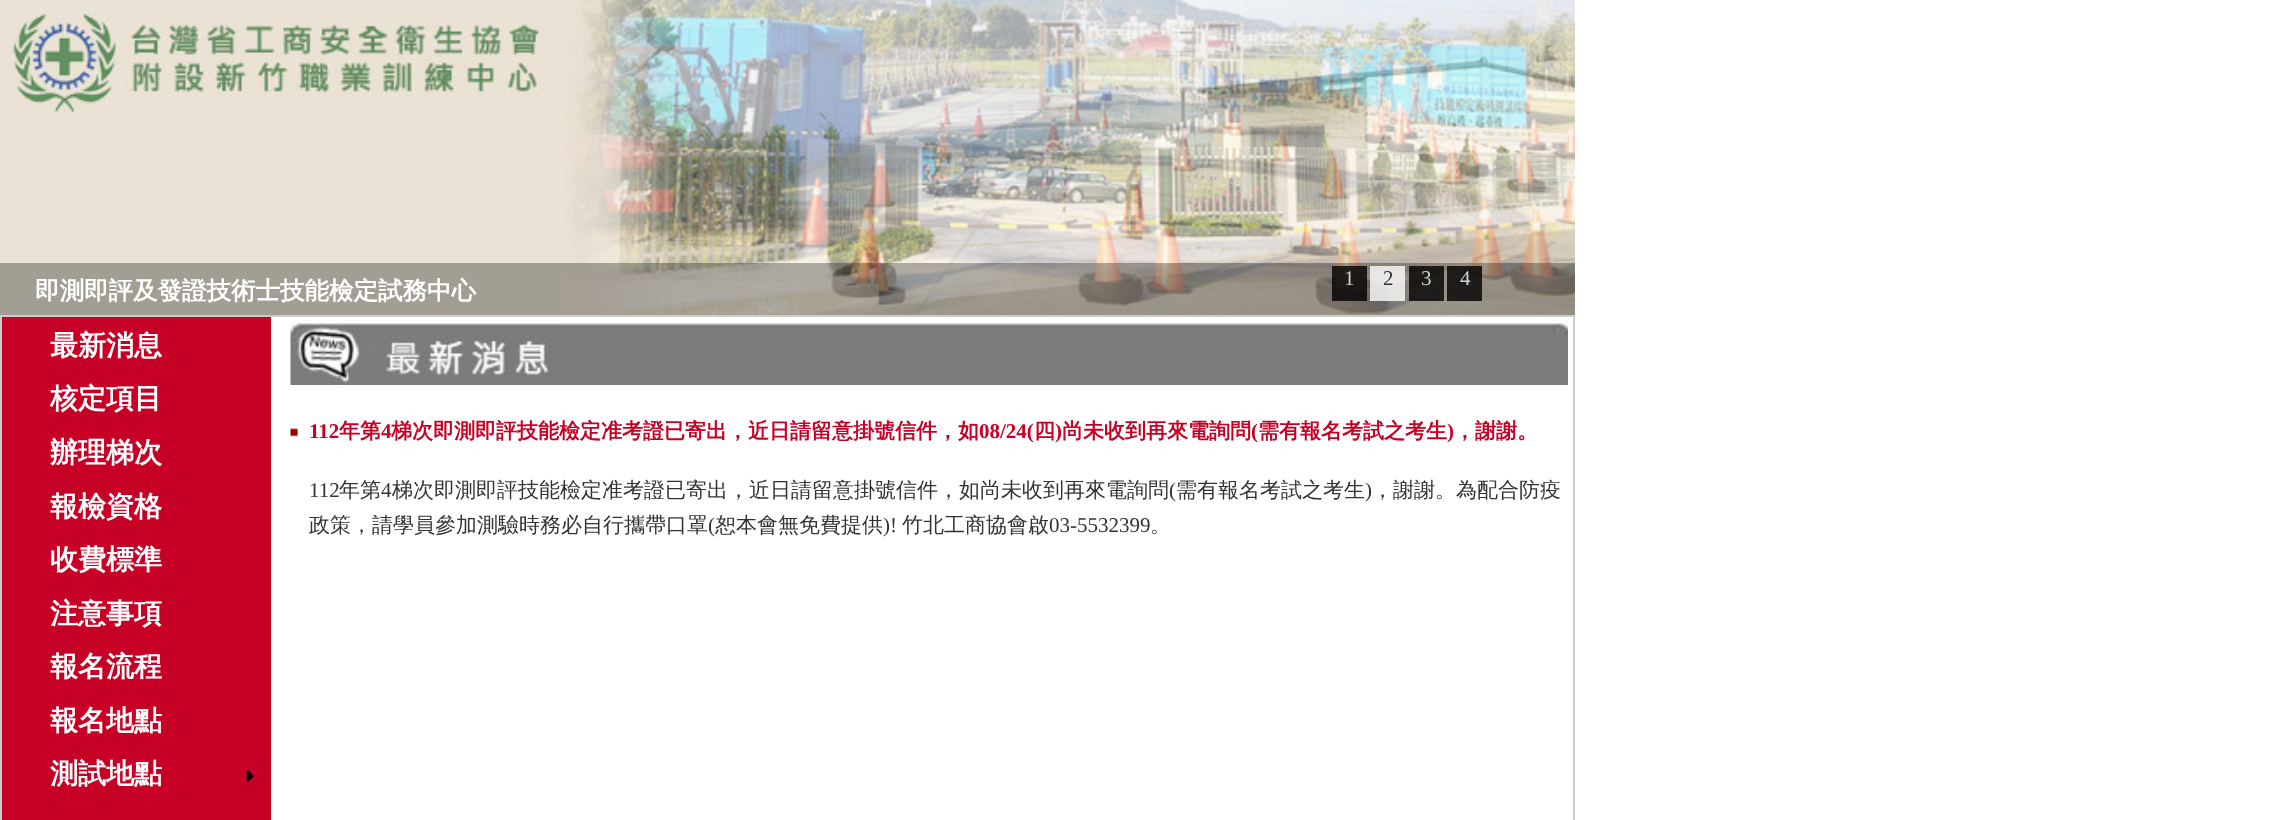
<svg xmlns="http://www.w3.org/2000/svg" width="2293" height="820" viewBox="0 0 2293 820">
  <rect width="100%" height="100%" fill="#fff"/>
  <image x="0" y="0" width="1575" height="315" href="img/1.png"/>
  <image x="0" y="0" width="1575" height="315" href="img/2.png"/>
  <path d="M0 263h1575v52H0z" fill="#0000004d"/>
  <path d="M1332 266h35v35H1332z" fill="#000000cc"/>
  <path d="M1370 266h35v35H1370z" fill="#ffffffcc"/>
  <path d="M1409 266h35v35H1409z" fill="#000000cc"/>
  <path d="M1447 266h35v35H1447z" fill="#000000cc"/>
  <path d="M0 315h1575v505H0z" fill="#ccc"/>
  <path d="M271 317h1302v503H271z" fill="#fff"/>
  <path d="M2 317h269v503H2z" fill="#c70025"/>
  <image x="246" y="770" width="8" height="13" href="img/3.png"/>
  <image x="290" y="320" width="1278" height="65" href="img/4.png"/>
  <image x="290" y="428" width="8" height="9" href="img/5.png"/>
  <text x="35" y="299" font-family="WenQuanYi Zen Hei" font-size="24.5" font-weight="bold" fill="#fff">即測即評及發證技術士技能檢定試務中心</text>
  <text x="1344" y="285" font-family="Liberation Serif" font-size="21" fill="#d2d1d1">1</text>
  <text x="1383" y="285" font-family="Liberation Serif" font-size="21" fill="#333">2</text>
  <g font-family="Liberation Serif" font-size="21" fill="#d2d1d1">
    <text x="1421" y="285">3</text>
    <text x="1460" y="285">4</text>
  </g>
  <g font-family="WenQuanYi Zen Hei" font-size="28" font-weight="bold" fill="#fff">
    <text x="50" y="355">最新消息</text>
    <text x="50" y="408">核定項目</text>
    <text x="50" y="462">辦理梯次</text>
    <text x="50" y="516">報檢資格</text>
    <text x="50" y="569">收費標準</text>
    <text x="50" y="623">注意事項</text>
    <text x="50" y="676">報名流程</text>
    <text x="50" y="730">報名地點</text>
    <text x="50" y="783">測試地點</text>
  </g>
  <text x="309" y="438" font-family="Liberation Serif" font-size="21" font-weight="bold" fill="#c70025">112</text>
  <text x="339" y="438" font-family="WenQuanYi Zen Hei" font-size="21" font-weight="bold" fill="#c70025">年第</text>
  <text x="381" y="438" font-family="Liberation Serif" font-size="21" font-weight="bold" fill="#c70025">4</text>
  <text x="391" y="438" font-family="WenQuanYi Zen Hei" font-size="21" font-weight="bold" fill="#c70025">梯次即測即評技能檢定准考證已寄出，近日請留意掛號信件，如</text>
  <text x="979" y="438" font-family="Liberation Serif" font-size="21" font-weight="bold" fill="#c70025">08/24(</text>
  <text x="1034" y="438" font-family="WenQuanYi Zen Hei" font-size="21" font-weight="bold" fill="#c70025">四</text>
  <text x="1055" y="438" font-family="Liberation Serif" font-size="21" font-weight="bold" fill="#c70025">)</text>
  <text x="1062" y="438" font-family="WenQuanYi Zen Hei" font-size="21" font-weight="bold" fill="#c70025">尚未收到再來電詢問</text>
  <text x="1251" y="438" font-family="Liberation Serif" font-size="21" font-weight="bold" fill="#c70025">(</text>
  <text x="1258" y="438" font-family="WenQuanYi Zen Hei" font-size="21" font-weight="bold" fill="#c70025">需有報名考試之考生</text>
  <text x="1447" y="438" font-family="Liberation Serif" font-size="21" font-weight="bold" fill="#c70025">)</text>
  <text x="1454" y="438" font-family="WenQuanYi Zen Hei" font-size="21" font-weight="bold" fill="#c70025">，謝謝。</text>
  <text x="309" y="497" font-family="Liberation Serif" font-size="21" fill="#333">112</text>
  <text x="339" y="497" font-family="WenQuanYi Zen Hei" font-size="21" font-weight="500" fill="#333">年第</text>
  <text x="381" y="497" font-family="Liberation Serif" font-size="21" fill="#333">4</text>
  <text x="392" y="497" font-family="WenQuanYi Zen Hei" font-size="21" font-weight="500" fill="#333">梯次即測即評技能檢定准考證已寄出，近日請留意掛號信件，如尚未收到再來電詢問</text>
  <text x="1169" y="497" font-family="Liberation Serif" font-size="21" fill="#333">(</text>
  <text x="1176" y="497" font-family="WenQuanYi Zen Hei" font-size="21" font-weight="500" fill="#333">需有報名考試之考生</text>
  <text x="1365" y="497" font-family="Liberation Serif" font-size="21" fill="#333">)</text>
  <g font-family="WenQuanYi Zen Hei" font-size="21" font-weight="500" fill="#333">
    <text x="1372" y="497">，謝謝。為配合防疫</text>
    <text x="309" y="532">政策，請學員參加測驗時務必自行攜帶口罩</text>
  </g>
  <text x="708" y="532" font-family="Liberation Serif" font-size="21" fill="#333">(</text>
  <text x="715" y="532" font-family="WenQuanYi Zen Hei" font-size="21" font-weight="500" fill="#333">恕本會無免費提供</text>
  <text x="883" y="532" font-family="Liberation Serif" font-size="21" fill="#333">)!</text>
  <text x="902" y="532" font-family="WenQuanYi Zen Hei" font-size="21" font-weight="500" fill="#333">竹北工商協會啟</text>
  <text x="1049" y="532" font-family="Liberation Serif" font-size="21" fill="#333">03-5532399</text>
  <text x="1150" y="532" font-family="WenQuanYi Zen Hei" font-size="21" font-weight="500" fill="#333">。</text>
</svg>
